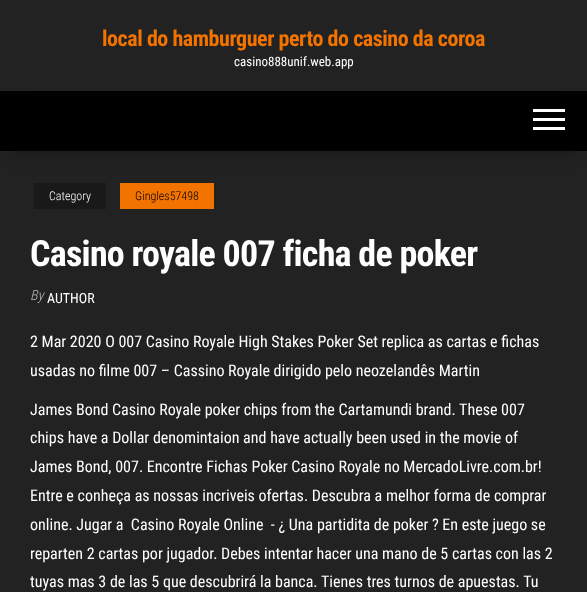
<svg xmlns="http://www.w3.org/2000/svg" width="587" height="592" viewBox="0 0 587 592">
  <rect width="100%" height="100%" fill="#222"/>
  <path d="M12 113h563v36H12z" fill="#0000006b" filter="blur(10px)"/>
  <path d="M0 91h587v60H0z" fill="#000"/>
  <path d="M533 109h32v3H533z" fill="#fff"/>
  <path d="M533 118h32v3H533z" fill="#fff"/>
  <path d="M533 127h32v3H533z" fill="#fff"/>
  <path d="M34 183h72v26H34z" fill="#191919"/>
  <path d="M120 183h94v26H120z" fill="#f27300"/>
  <text x="102" y="46" font-family="Roboto Condensed" font-size="22" font-weight="bold" letter-spacing="-0.45" fill="#f27300">local do hamburguer perto do casino da coroa</text>
  <text x="234" y="66" font-family="Roboto Condensed" font-size="13" fill="#fff">casino888unif.web.app</text>
  <text x="49" y="200" font-family="Roboto Condensed" font-size="12" font-weight="300" fill="#fff">Category</text>
  <text x="135" y="200" font-family="Roboto Condensed" font-size="12" font-weight="300" fill="#000">Gingles57498</text>
  <text x="30" y="266" font-family="Roboto Condensed" font-size="36" font-weight="bold" letter-spacing="-0.75" fill="#fff">Casino royale 007 ficha de poker</text>
  <text x="30" y="300" font-family="Roboto Condensed" font-size="14" font-weight="300" font-style="italic" fill="#bdbdbd">By</text>
  <text x="47" y="303" font-family="Roboto Condensed" font-size="14" fill="#fff">AUTHOR</text>
  <g font-family="Roboto Condensed" font-size="16" fill="#fff">
    <text x="30" y="347">2 Mar 2020 O 007 Casino Royale High Stakes Poker Set replica as cartas e fichas</text>
    <text x="30" y="376">usadas no filme 007 – Cassino Royale dirigido pelo neozelandês Martin</text>
    <text x="30" y="415">James Bond Casino Royale poker chips from the Cartamundi brand. These 007</text>
    <text x="30" y="443">chips have a Dollar denomintaion and have actually been used in the movie of</text>
    <text x="30" y="472">James Bond, 007. Encontre Fichas Poker Casino Royale no MercadoLivre.com.br!</text>
    <text x="30" y="501">Entre e conheça as nossas incriveis ofertas. Descubra a melhor forma de comprar</text>
    <text x="30" y="530">online. Jugar a ️ Casino Royale Online ️ - ¿ Una partidita de poker ? En este juego se</text>
    <text x="30" y="559">reparten 2 cartas por jugador. Debes intentar hacer una mano de 5 cartas con las 2</text>
    <text x="30" y="587">tuyas mas 3 de las 5 que descubrirá la banca. Tienes tres turnos de apuestas. Tu</text>
  </g>
</svg>
